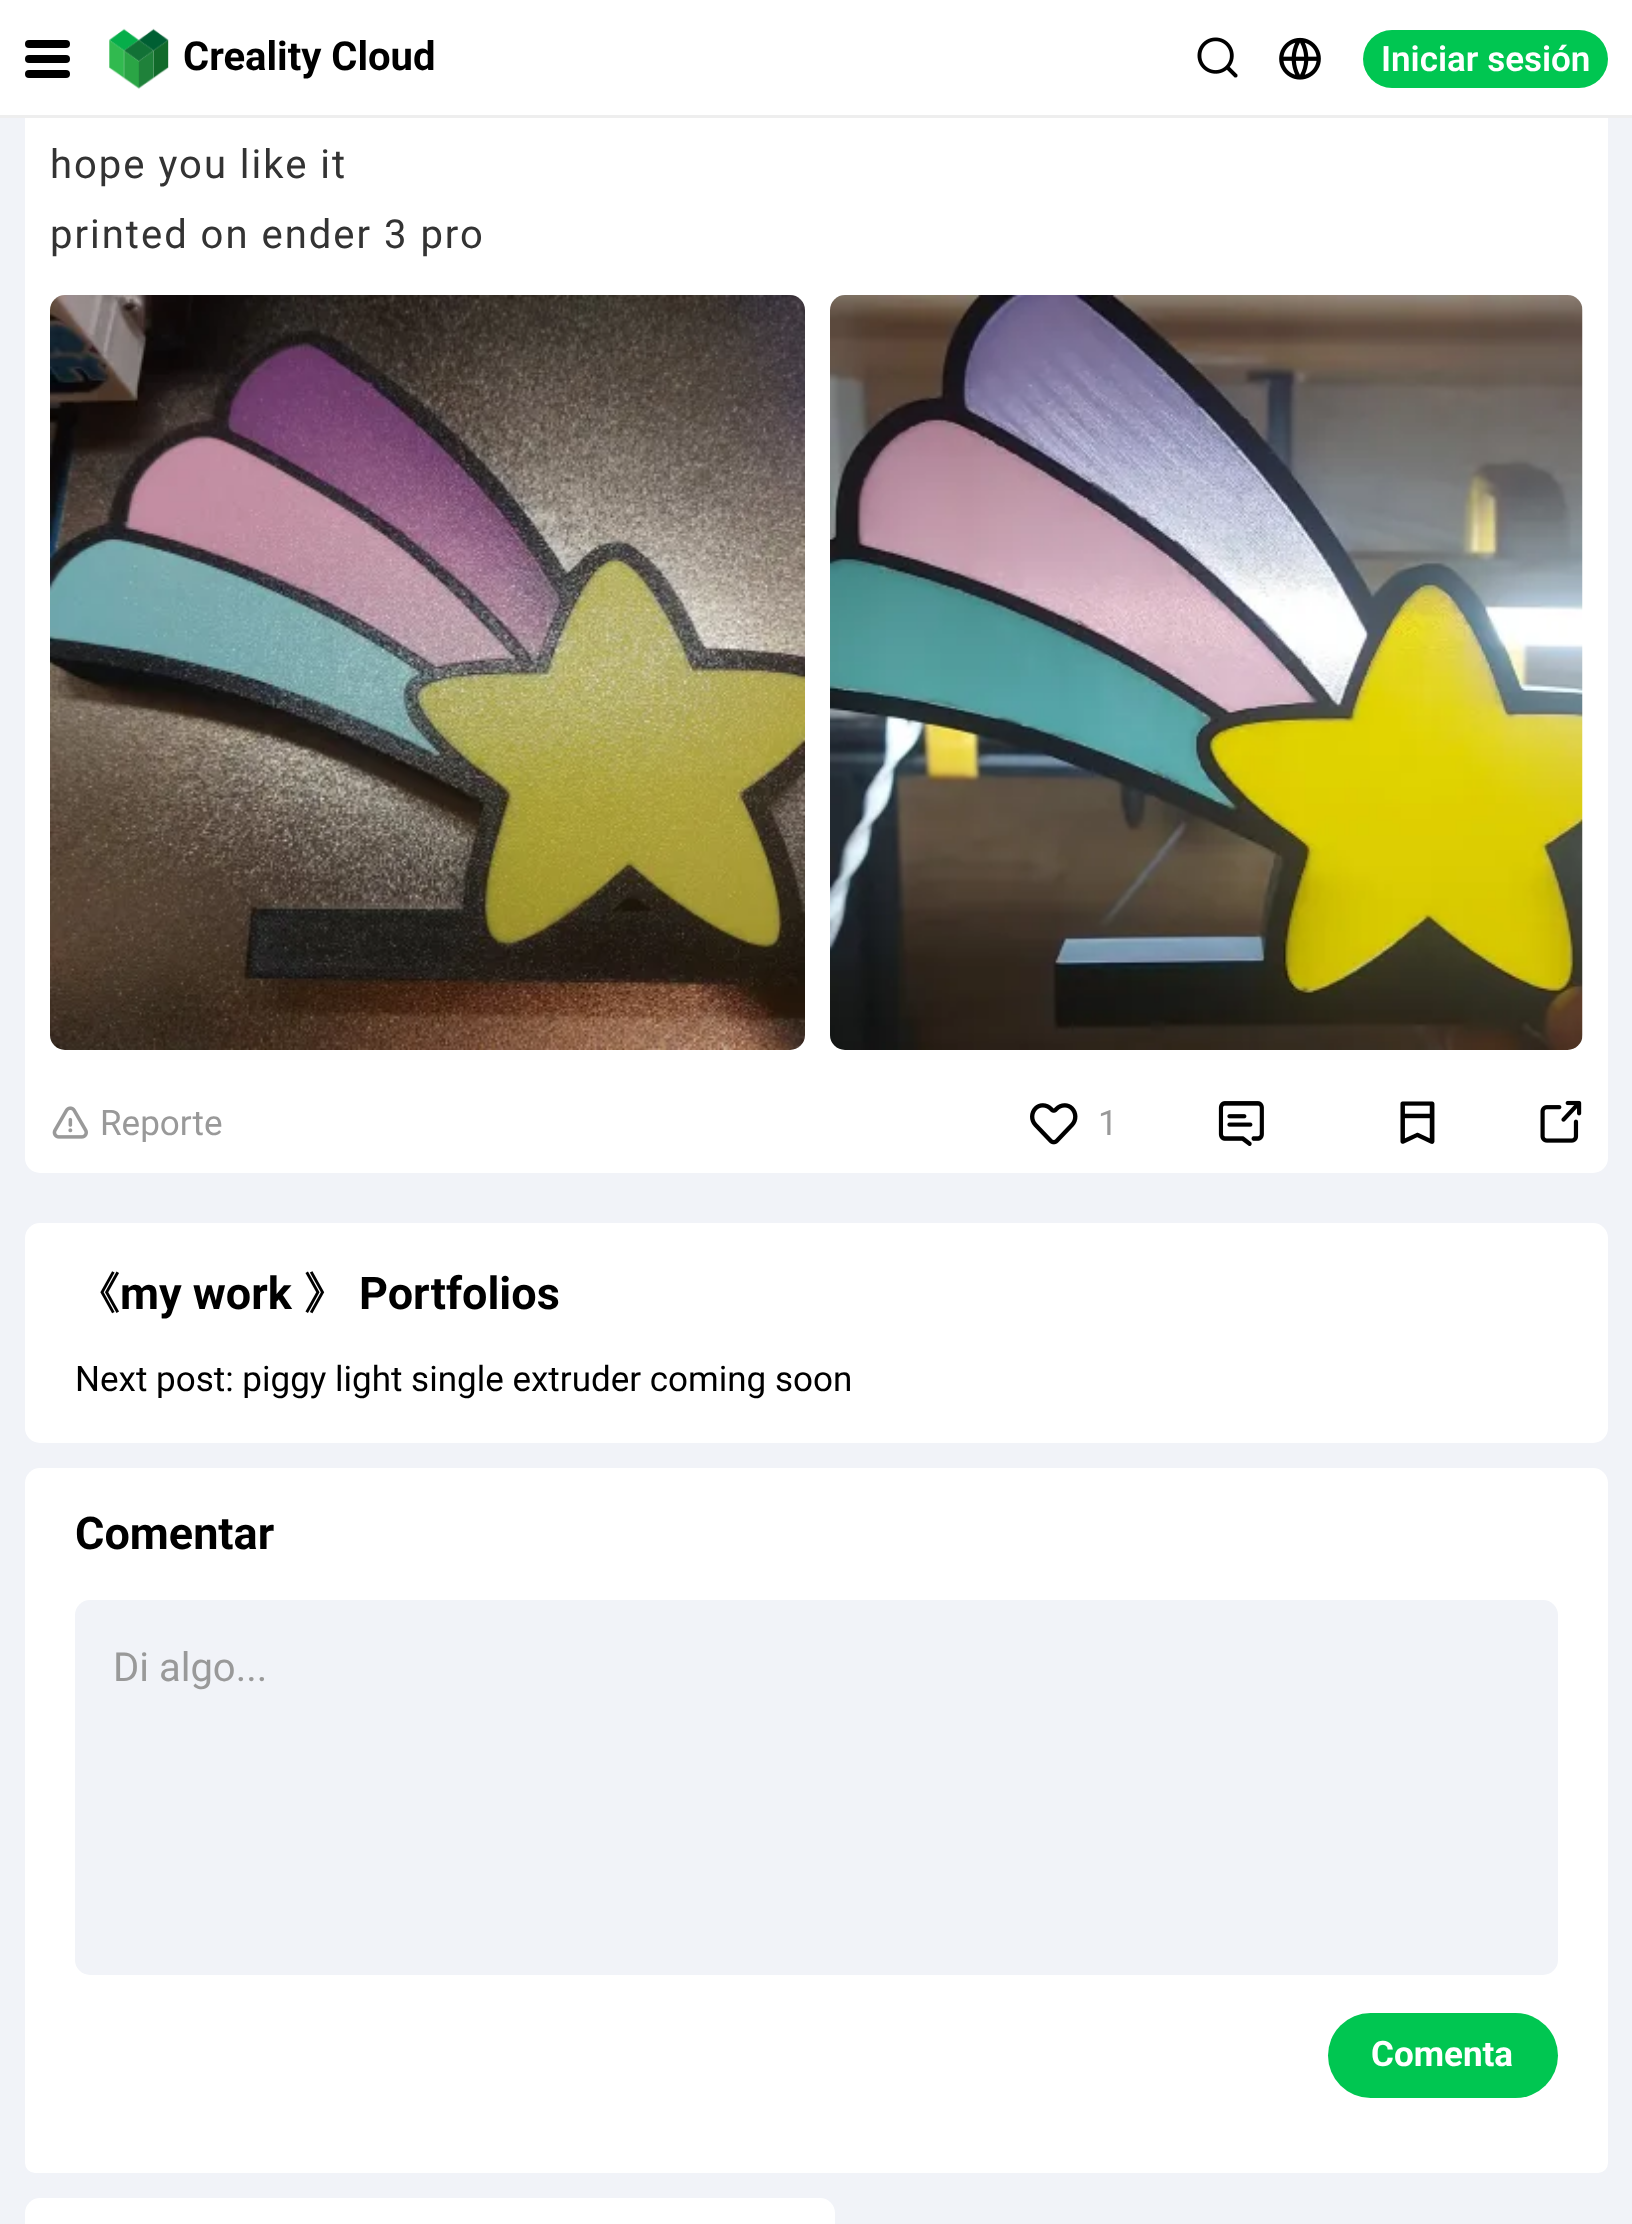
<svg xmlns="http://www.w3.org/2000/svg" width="1632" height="2224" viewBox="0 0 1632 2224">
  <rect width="100%" height="100%" fill="#f1f3f8"/>
  <rect x="25" y="-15" width="1583" height="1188" rx="15" fill="#fff"/>
  <path d="M0 0h1632v115H0z" fill="#fff"/>
  <rect x="25" y="40" width="45" height="8" rx="4" fill="#000"/>
  <rect x="25" y="55" width="45" height="8" rx="4" fill="#000"/>
  <rect x="25" y="70" width="45" height="8" rx="4" fill="#000"/>
  <image x="109" y="28" width="60" height="61" href="img/1.png"/>
  <image x="1197" y="37" width="41" height="41" href="img/2.png"/>
  <image x="1279" y="37" width="42" height="43" href="img/3.png"/>
  <rect x="1363" y="30" width="245" height="58" rx="29" fill="#00c651"/>
  <path d="M0 115h1632v3H0z" fill="#eee"/>
  <image x="50" y="295" width="755" height="755" href="img/4.png"/>
  <image x="830" y="295" width="753" height="755" href="img/5.png"/>
  <image x="52" y="1106" width="36" height="33" href="img/6.png"/>
  <image x="1030" y="1103" width="48" height="42" href="img/7.png"/>
  <image x="1218" y="1101" width="46" height="45" href="img/8.png"/>
  <image x="1400" y="1101" width="35" height="43" href="img/9.png"/>
  <image x="1540" y="1100" width="42" height="43" href="img/10.png"/>
  <rect x="25" y="1223" width="1583" height="220" rx="15" fill="#fff"/>
  <rect x="25" y="1468" width="1583" height="705" rx="15" fill="#fff"/>
  <rect x="25" y="1600" width="1583" height="573" rx="10" fill="#fff"/>
  <rect x="75" y="1600" width="1483" height="375" rx="15" fill="#f1f3f8"/>
  <rect x="1328" y="2013" width="230" height="85" rx="42.5" fill="#00c651"/>
  <rect x="25" y="2198" width="810" height="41" rx="15" fill="#fff"/>
  <text x="183" y="70" font-family="Roboto" font-size="40" font-weight="bold" fill="#000">Creality Cloud</text>
  <text x="1381" y="71" font-family="Roboto" font-size="35" font-weight="600" fill="#fff">Iniciar sesión</text>
  <g font-family="Roboto" font-size="40" letter-spacing="2" fill="#333">
    <text x="50" y="178">hope you like it</text>
    <text x="50" y="248">printed on ender 3 pro</text>
  </g>
  <g font-family="Roboto" font-size="35" fill="#999">
    <text x="100" y="1135">Reporte</text>
    <text x="1098" y="1135">1</text>
  </g>
  <text x="75" y="1309" font-family="WenQuanYi Zen Hei" font-size="45" font-weight="bold" fill="#000">《</text>
  <text x="120" y="1309" font-family="Roboto" font-size="45" font-weight="bold" fill="#000">my work</text>
  <text x="303" y="1309" font-family="WenQuanYi Zen Hei" font-size="45" font-weight="bold" fill="#000">》</text>
  <text x="359" y="1309" font-family="Roboto" font-size="45" font-weight="bold" fill="#000">Portfolios</text>
  <text x="75" y="1391" font-family="Roboto" font-size="35" fill="#000">Next post: piggy light single extruder coming soon</text>
  <text x="75" y="1549" font-family="Roboto" font-size="45" font-weight="bold" fill="#000">Comentar</text>
  <text x="113" y="1681" font-family="Roboto" font-size="40" fill="#999">Di algo...</text>
  <text x="1371" y="2066" font-family="Roboto" font-size="35" font-weight="bold" fill="#fff">Comenta</text>
</svg>
